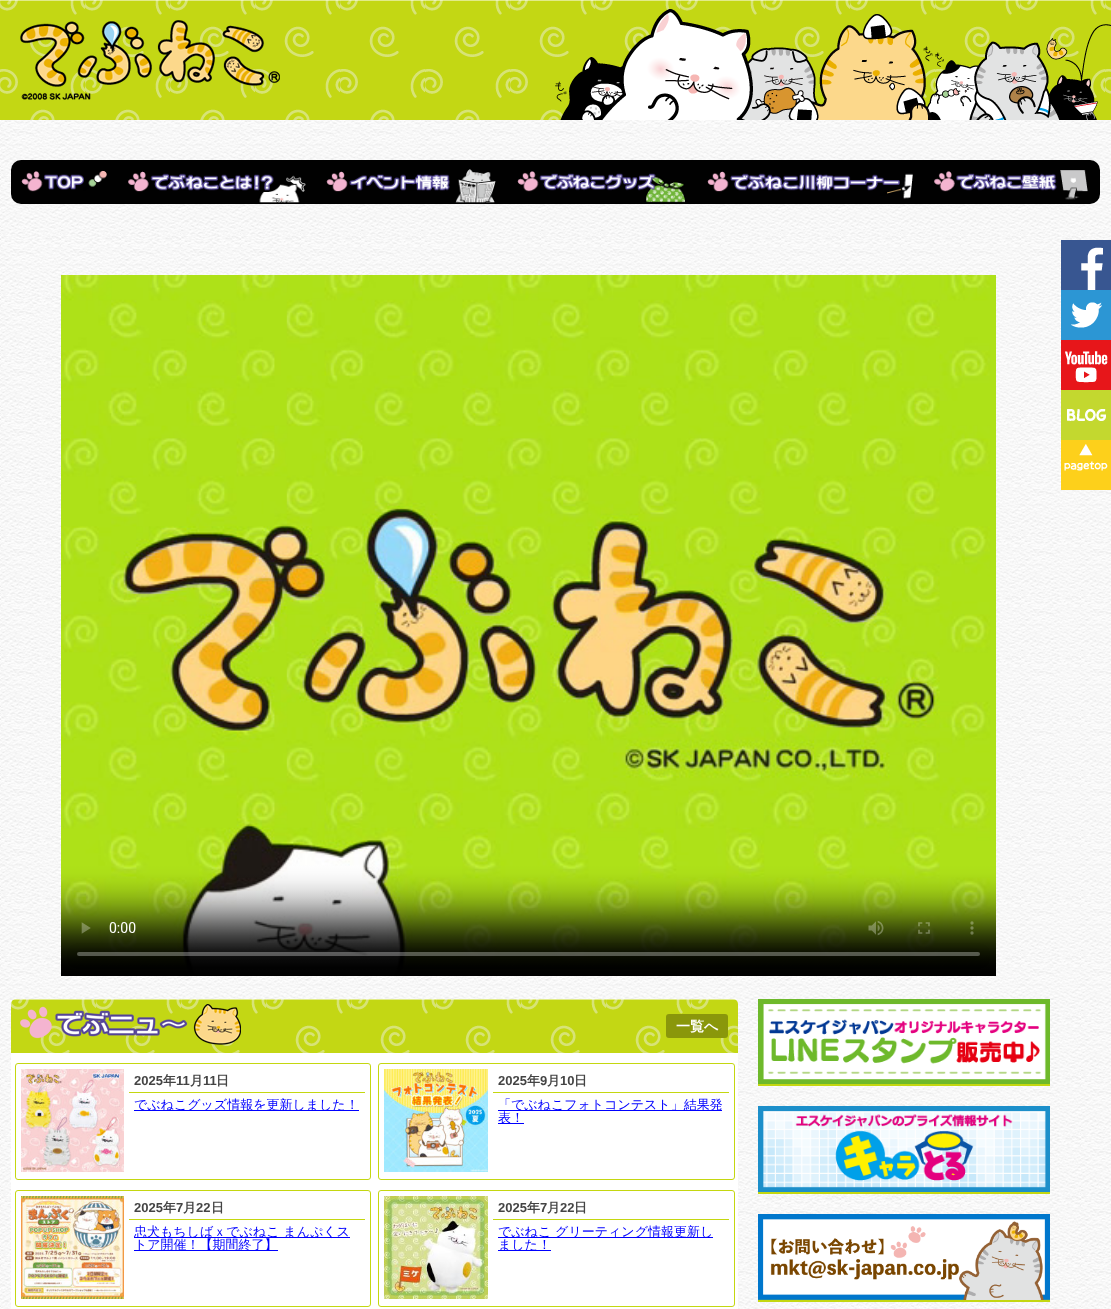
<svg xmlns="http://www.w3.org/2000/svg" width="1111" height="1309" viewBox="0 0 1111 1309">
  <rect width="100%" height="100%" fill="#fff"/>
  <image x="0" y="120" width="1111" height="1189" href="img/1.png"/>
  <image x="0" y="0" width="1111" height="120" href="img/2.png"/>
  <image x="555" y="9" width="556" height="111" href="img/3.png"/>
  <image x="20" y="20" width="260" height="80" href="img/4.png"/>
  <rect x="11" y="160" width="1089" height="44" rx="10" fill="#010101"/>
  <image x="21" y="170" width="86" height="22" href="img/5.png"/>
  <image x="128" y="171" width="178" height="32" href="img/6.png"/>
  <image x="326" y="169" width="170" height="34" href="img/7.png"/>
  <image x="517" y="171" width="168" height="32" href="img/8.png"/>
  <image x="707" y="171" width="206" height="28" href="img/9.png"/>
  <image x="934" y="170" width="154" height="30" href="img/10.png"/>
  <image x="1061" y="240" width="50" height="50" href="img/11.png"/>
  <image x="1061" y="290" width="50" height="50" href="img/12.png"/>
  <image x="1061" y="340" width="50" height="50" href="img/13.png"/>
  <image x="1061" y="390" width="50" height="50" href="img/14.png"/>
  <image x="1061" y="440" width="50" height="50" href="img/15.png"/>
  <image x="61" y="275" width="935" height="701" href="img/16.png"/>
  <image x="11" y="999" width="727" height="54" href="img/17.png"/>
  <image x="20" y="1004" width="221" height="41" href="img/18.png"/>
  <rect x="666" y="1014" width="62" height="24" rx="3" fill="#8a970b"/>
  <path d="M11 1053h727v256H11z" fill="#fff"/>
  <rect x="15.5" y="1063.5" width="355" height="116" rx="2.5" fill="none" stroke="#c4d710"/>
  <image x="21" y="1069" width="103" height="103" href="img/19.png"/>
  <path d="M129 1092h236v1H129z" fill="#c4d710"/>
  <path d="M134 1110h225v1H134z" fill="#00f"/>
  <rect x="378.5" y="1063.5" width="356" height="116" rx="2.5" fill="none" stroke="#c4d710"/>
  <image x="384" y="1069" width="104" height="103" href="img/20.png"/>
  <path d="M493 1092h236v1H493z" fill="#c4d710"/>
  <path d="M498 1110h224v1H498z" fill="#00f"/>
  <path d="M498 1123h26v1H498z" fill="#00f"/>
  <rect x="15.5" y="1190.5" width="355" height="116" rx="2.5" fill="none" stroke="#c4d710"/>
  <image x="21" y="1196" width="103" height="103" href="img/21.png"/>
  <path d="M129 1219h236v1H129z" fill="#c4d710"/>
  <path d="M134 1237h216v1H134z" fill="#00f"/>
  <path d="M134 1250h144v1H134z" fill="#00f"/>
  <rect x="378.5" y="1190.5" width="356" height="116" rx="2.5" fill="none" stroke="#c4d710"/>
  <image x="384" y="1196" width="104" height="103" href="img/22.png"/>
  <path d="M493 1219h236v1H493z" fill="#c4d710"/>
  <path d="M498 1237h215v1H498z" fill="#00f"/>
  <path d="M498 1250h53v1H498z" fill="#00f"/>
  <path d="M758 1084h292v2H758z" fill="#c4d710"/>
  <image x="758" y="999" width="292" height="85" href="img/23.png"/>
  <path d="M758 1192h292v2H758z" fill="#c4d710"/>
  <image x="758" y="1106" width="292" height="86" href="img/24.png"/>
  <path d="M758 1299h292v3H758z" fill="#c4d710"/>
  <image x="758" y="1214" width="292" height="86" href="img/25.png"/>
  <text x="676" y="1031" font-family="WenQuanYi Zen Hei" font-size="14" font-weight="bold" fill="#fff">一覧へ</text>
  <text x="134" y="1085" font-family="Liberation Sans" font-size="13" font-weight="bold" fill="#444">2025</text>
  <text x="163" y="1085" font-family="WenQuanYi Zen Hei" font-size="13" font-weight="bold" fill="#444">年</text>
  <text x="176" y="1085" font-family="Liberation Sans" font-size="13" font-weight="bold" fill="#444">11</text>
  <text x="190" y="1085" font-family="WenQuanYi Zen Hei" font-size="13" font-weight="bold" fill="#444">月</text>
  <text x="203" y="1085" font-family="Liberation Sans" font-size="13" font-weight="bold" fill="#444">11</text>
  <text x="216" y="1085" font-family="WenQuanYi Zen Hei" font-size="13" font-weight="bold" fill="#444">日</text>
  <text x="134" y="1109" font-family="WenQuanYi Zen Hei" font-size="13" font-weight="500" fill="#00f">でぶねこグッズ情報を更新しました！</text>
  <text x="498" y="1085" font-family="Liberation Sans" font-size="13" font-weight="bold" fill="#444">2025</text>
  <text x="527" y="1085" font-family="WenQuanYi Zen Hei" font-size="13" font-weight="bold" fill="#444">年</text>
  <text x="540" y="1085" font-family="Liberation Sans" font-size="13" font-weight="bold" fill="#444">9</text>
  <text x="547" y="1085" font-family="WenQuanYi Zen Hei" font-size="13" font-weight="bold" fill="#444">月</text>
  <text x="560" y="1085" font-family="Liberation Sans" font-size="13" font-weight="bold" fill="#444">10</text>
  <text x="574" y="1085" font-family="WenQuanYi Zen Hei" font-size="13" font-weight="bold" fill="#444">日</text>
  <g font-family="WenQuanYi Zen Hei" font-size="13" font-weight="500" fill="#00f">
    <text x="498" y="1109">「でぶねこフォトコンテスト」結果発</text>
    <text x="498" y="1122">表！</text>
  </g>
  <text x="134" y="1212" font-family="Liberation Sans" font-size="13" font-weight="bold" fill="#444">2025</text>
  <text x="163" y="1212" font-family="WenQuanYi Zen Hei" font-size="13" font-weight="bold" fill="#444">年</text>
  <text x="176" y="1212" font-family="Liberation Sans" font-size="13" font-weight="bold" fill="#444">7</text>
  <text x="183" y="1212" font-family="WenQuanYi Zen Hei" font-size="13" font-weight="bold" fill="#444">月</text>
  <text x="196" y="1212" font-family="Liberation Sans" font-size="13" font-weight="bold" fill="#444">22</text>
  <text x="211" y="1212" font-family="WenQuanYi Zen Hei" font-size="13" font-weight="bold" fill="#444">日</text>
  <g font-family="WenQuanYi Zen Hei" font-size="13" font-weight="500" fill="#00f">
    <text x="134" y="1236">忠犬もちしばｘでぶねこ まんぷくス</text>
    <text x="134" y="1249">トア開催！【期間終了】</text>
  </g>
  <text x="498" y="1212" font-family="Liberation Sans" font-size="13" font-weight="bold" fill="#444">2025</text>
  <text x="527" y="1212" font-family="WenQuanYi Zen Hei" font-size="13" font-weight="bold" fill="#444">年</text>
  <text x="540" y="1212" font-family="Liberation Sans" font-size="13" font-weight="bold" fill="#444">7</text>
  <text x="547" y="1212" font-family="WenQuanYi Zen Hei" font-size="13" font-weight="bold" fill="#444">月</text>
  <text x="560" y="1212" font-family="Liberation Sans" font-size="13" font-weight="bold" fill="#444">22</text>
  <text x="574" y="1212" font-family="WenQuanYi Zen Hei" font-size="13" font-weight="bold" fill="#444">日</text>
  <g font-family="WenQuanYi Zen Hei" font-size="13" font-weight="500" fill="#00f">
    <text x="498" y="1236">でぶねこ グリーティング情報更新し</text>
    <text x="498" y="1249">ました！</text>
  </g>
</svg>
